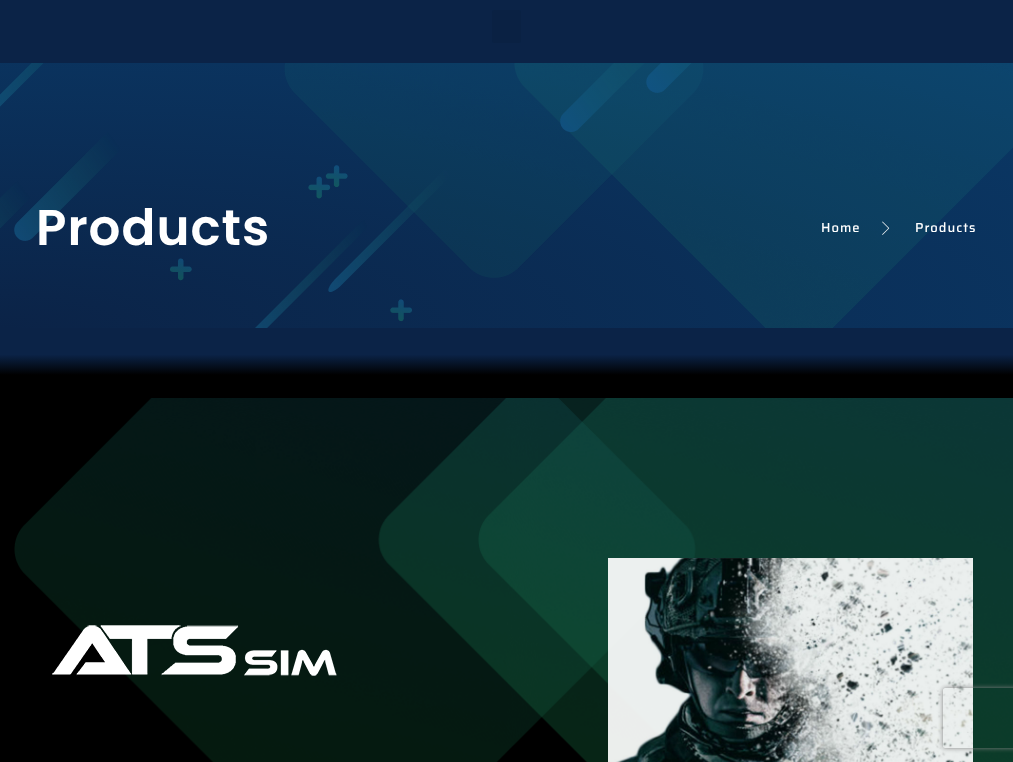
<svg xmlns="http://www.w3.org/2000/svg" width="1013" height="762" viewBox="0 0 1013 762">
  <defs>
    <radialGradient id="g1" gradientUnits="userSpaceOnUse" cx="0" cy="0" r="1" gradientTransform="matrix(1433 0 0 375 0 328)"><stop offset="0" stop-color="#0b2347"/><stop offset="1" stop-color="#0a3967"/></radialGradient>
    <linearGradient id="g2" gradientUnits="userSpaceOnUse" x1="507" y1="328" x2="507" y2="398"><stop offset="0.38" stop-color="#0b2347"/><stop offset="0.67" stop-color="#000"/></linearGradient>
    <clipPath id="clip1"><path d="M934 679H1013V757H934ZM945 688H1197C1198 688 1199 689 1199 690V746C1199 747 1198 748 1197 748H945C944 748 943 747 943 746V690C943 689 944 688 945 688Z" clip-rule="evenodd"/></clipPath>
  </defs>
  <rect width="100%" height="100%" fill="#0b2347"/>
  <rect x="492" y="10" width="29" height="33" rx="3" fill="#0a2143"/>
  <path d="M0 63h1013v265H0z" fill="url(#g1)"/>
  <image x="0" y="63" width="1013" height="265" href="img/1.png"/>
  <image x="882" y="221" width="8" height="14" href="img/2.png"/>
  <path d="M0 355h1013v43H0z" fill="url(#g2)"/>
  <path d="M0 398h1013v364H0z" fill="#000"/>
  <image x="14" y="398" width="999" height="364" href="img/3.png"/>
  <image x="52" y="625" width="285" height="51" href="img/4.png"/>
  <image x="608" y="558" width="365" height="204" href="img/5.png"/>
  <g clip-path="url(#clip1)">
    <rect x="943" y="688" width="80" height="60" rx="2" fill="#808080" filter="blur(2.5px)"/>
  </g>
  <text x="36" y="245" font-family="Poppins" font-size="50" font-weight="600" letter-spacing="1" fill="#fff">Products</text>
  <g font-family="Saira" font-size="13" font-weight="500" letter-spacing="1" fill="#fff">
    <text x="821" y="232">Home</text>
    <text x="915" y="232">Products</text>
  </g>
</svg>
